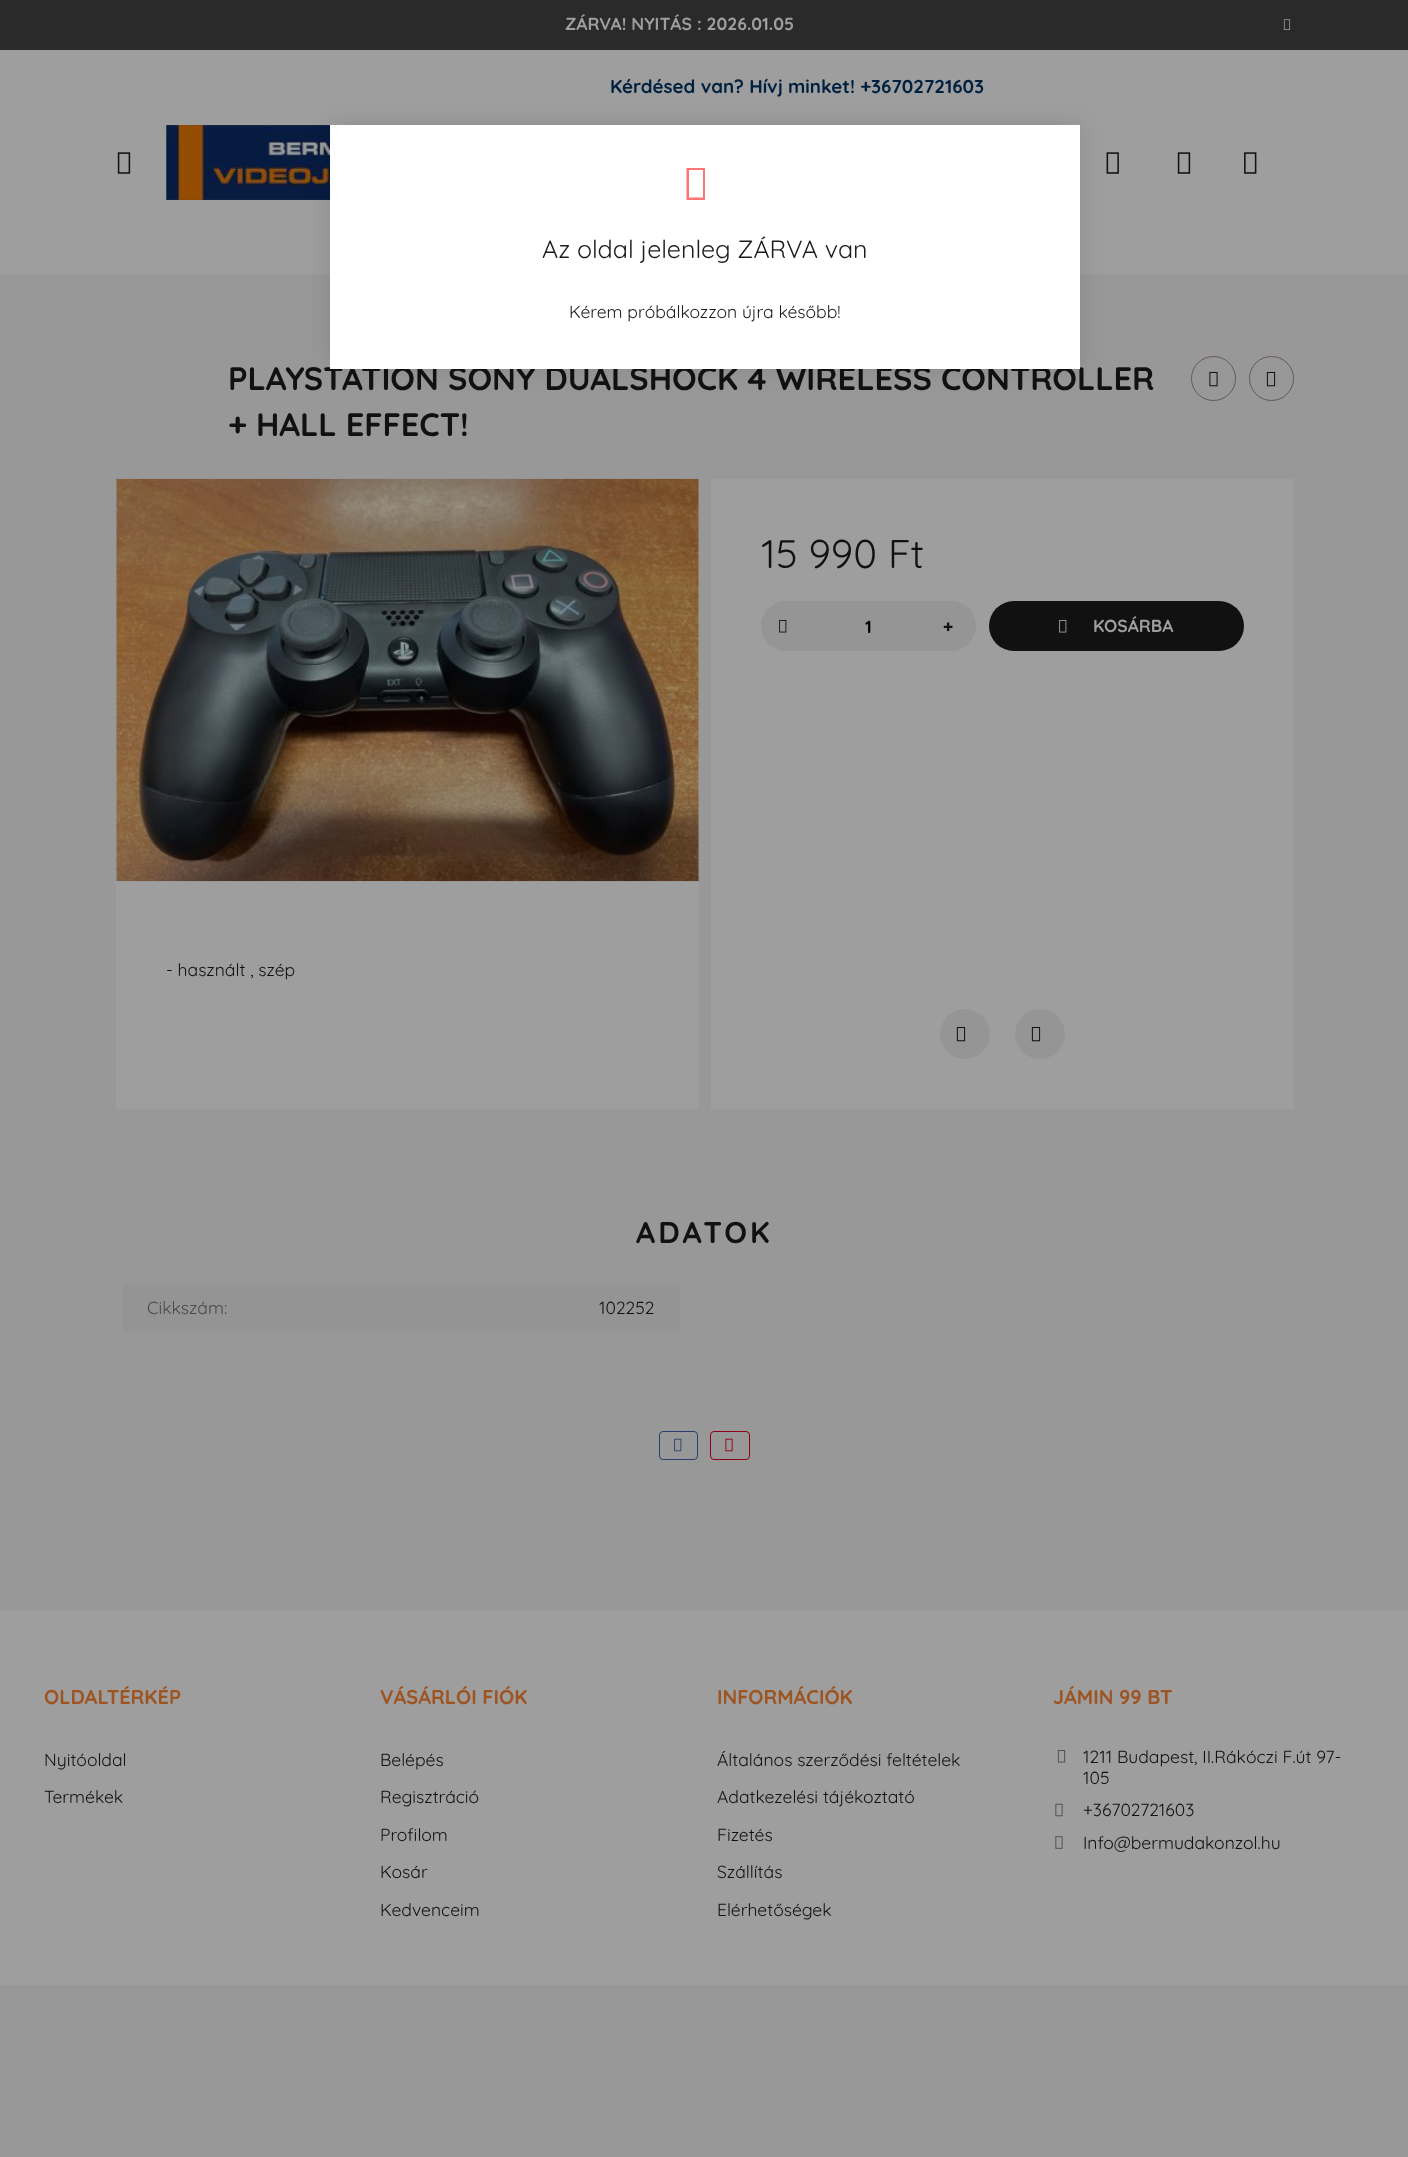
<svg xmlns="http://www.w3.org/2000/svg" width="1408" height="2157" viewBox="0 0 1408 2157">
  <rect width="100%" height="100%" fill="#989898"/>
  <path d="M0 0h1408v50H0z" fill="#2a2a2a"/>
  <image x="1283" y="19" width="8" height="11" href="img/1.png"/>
  <path d="M0 50h1408v224H0z" fill="#9e9e9e"/>
  <image x="1106" y="152" width="13" height="22" href="img/2.png"/>
  <image x="1177" y="152" width="14" height="22" href="img/3.png"/>
  <image x="1244" y="152" width="13" height="22" href="img/4.png"/>
  <image x="117" y="152" width="14" height="22" href="img/3.png"/>
  <image x="166" y="125" width="164" height="75" href="img/5.png"/>
  <circle cx="1213.5" cy="378.5" r="22" fill="none" stroke="#685668"/>
  <image x="1209" y="371" width="9" height="16" href="img/6.png"/>
  <circle cx="1271.5" cy="378.5" r="22" fill="none" stroke="#685668"/>
  <image x="1266" y="371" width="10" height="16" href="img/7.png"/>
  <path d="M711 479h583v630H711z" fill="#9e9e9e"/>
  <rect x="761" y="601" width="215" height="50" rx="25" fill="#959595"/>
  <image x="779" y="620" width="8" height="13" href="img/8.png"/>
  <rect x="989" y="601" width="255" height="50" rx="25" fill="#111"/>
  <image x="1059" y="620" width="8" height="13" href="img/9.png"/>
  <circle cx="965" cy="1034" r="25" fill="#959595"/>
  <image x="956" y="1026" width="10" height="16" href="img/10.png"/>
  <circle cx="1040" cy="1034" r="25" fill="#959595"/>
  <image x="1031" y="1026" width="10" height="16" href="img/10.png"/>
  <path d="M116 479h583v630H116z" fill="#9e9e9e"/>
  <image x="116" y="478" width="583" height="404" href="img/11.png"/>
  <path d="M123 1285h557v46H123z" fill="#949494"/>
  <rect x="659.5" y="1431.5" width="38" height="28" rx="3.5" fill="none" stroke="#29406e"/>
  <image x="674" y="1438" width="8" height="14" href="img/12.png"/>
  <rect x="710.5" y="1431.5" width="39" height="28" rx="3.5" fill="none" stroke="#8f0016"/>
  <image x="725" y="1438" width="8" height="14" href="img/13.png"/>
  <path d="M0 1610h1408v375H0z" fill="#9e9e9e"/>
  <image x="1057" y="1750" width="9" height="13" href="img/14.png"/>
  <image x="1055" y="1803" width="8" height="14" href="img/15.png"/>
  <image x="1055" y="1836" width="8" height="13" href="img/16.png"/>
  <path d="M330 125h750v244H330z" fill="#0000001a" filter="blur(12.5px)"/>
  <text x="565" y="30" font-family="Quicksand" font-size="17.5" font-weight="bold" fill="#9e9e9e">ZÁRVA! NYITÁS : 2026.01.05</text>
  <text x="610" y="93" font-family="Quicksand" font-size="18.75" font-weight="bold" fill="#00203f">Kérdésed van? Hívj minket! +36702721603</text>
  <g font-family="Quicksand" font-size="32.5" font-weight="bold" fill="#111">
    <text x="228" y="390">PLAYSTATION SONY DUALSHOCK 4 WIRELESS CONTROLLER</text>
    <text x="228" y="436">+ HALL EFFECT!</text>
  </g>
  <text x="761" y="568" font-family="Quicksand" font-size="40" fill="#111">15 990 Ft</text>
  <text x="865" y="633" font-family="Quicksand" font-size="17.5" font-weight="bold" fill="#000">1</text>
  <text x="943" y="633" font-family="Noto Sans" font-size="17.5" font-weight="900" fill="#111">+</text>
  <text x="1093" y="632" font-family="Quicksand" font-size="17.5" font-weight="bold" fill="#9e9e9e">KOSÁRBA</text>
  <text x="166" y="976" font-family="Quicksand" font-size="17.5" fill="#111">- használt , szép</text>
  <text x="636" y="1243" font-family="Quicksand" font-size="30" font-weight="bold" letter-spacing="3" fill="#111">ADATOK</text>
  <text x="147" y="1314" font-family="Quicksand" font-size="17.5" fill="#4a4a4a">Cikkszám:</text>
  <text x="599" y="1314" font-family="Quicksand" font-size="17.5" fill="#111">102252</text>
  <text x="44" y="1704" font-family="Quicksand" font-size="20" font-weight="bold" fill="#9e5420">OLDALTÉRKÉP</text>
  <g font-family="Quicksand" font-size="17.5" fill="#111">
    <text x="44" y="1766">Nyitóoldal</text>
    <text x="44" y="1803">Termékek</text>
  </g>
  <text x="380" y="1704" font-family="Quicksand" font-size="20" font-weight="bold" fill="#9e5420">VÁSÁRLÓI FIÓK</text>
  <g font-family="Quicksand" font-size="17.5" fill="#111">
    <text x="380" y="1766">Belépés</text>
    <text x="380" y="1803">Regisztráció</text>
    <text x="380" y="1841">Profilom</text>
    <text x="380" y="1878">Kosár</text>
    <text x="380" y="1916">Kedvenceim</text>
  </g>
  <text x="717" y="1704" font-family="Quicksand" font-size="20" font-weight="bold" fill="#9e5420">INFORMÁCIÓK</text>
  <g font-family="Quicksand" font-size="17.5" fill="#111">
    <text x="717" y="1766">Általános szerződési feltételek</text>
    <text x="717" y="1803">Adatkezelési tájékoztató</text>
    <text x="717" y="1841">Fizetés</text>
    <text x="717" y="1878">Szállítás</text>
    <text x="717" y="1916">Elérhetőségek</text>
  </g>
  <text x="1053" y="1704" font-family="Quicksand" font-size="20" font-weight="bold" fill="#9e5420">JÁMIN 99 BT</text>
  <g font-family="Quicksand" font-size="17.5" fill="#111">
    <text x="1083" y="1763">1211 Budapest, II.Rákóczi F.út 97-</text>
    <text x="1083" y="1784">105</text>
    <text x="1083" y="1816">+36702721603</text>
    <text x="1083" y="1849">Info@bermudakonzol.hu</text>
  </g>
  <path d="M330 125h750v244H330z" fill="#fff"/>
  <path d="M686.5 200V168H705V200ZM689 197.5H703V170H689Z" fill="#ff7575"/>
  <text x="542" y="258" font-family="Quicksand" font-size="25" fill="#1c1c1c">Az oldal jelenleg ZÁRVA van</text>
  <text x="569" y="318" font-family="Quicksand" font-size="17.5" fill="#1c1c1c">Kérem próbálkozzon újra később!</text>
</svg>
